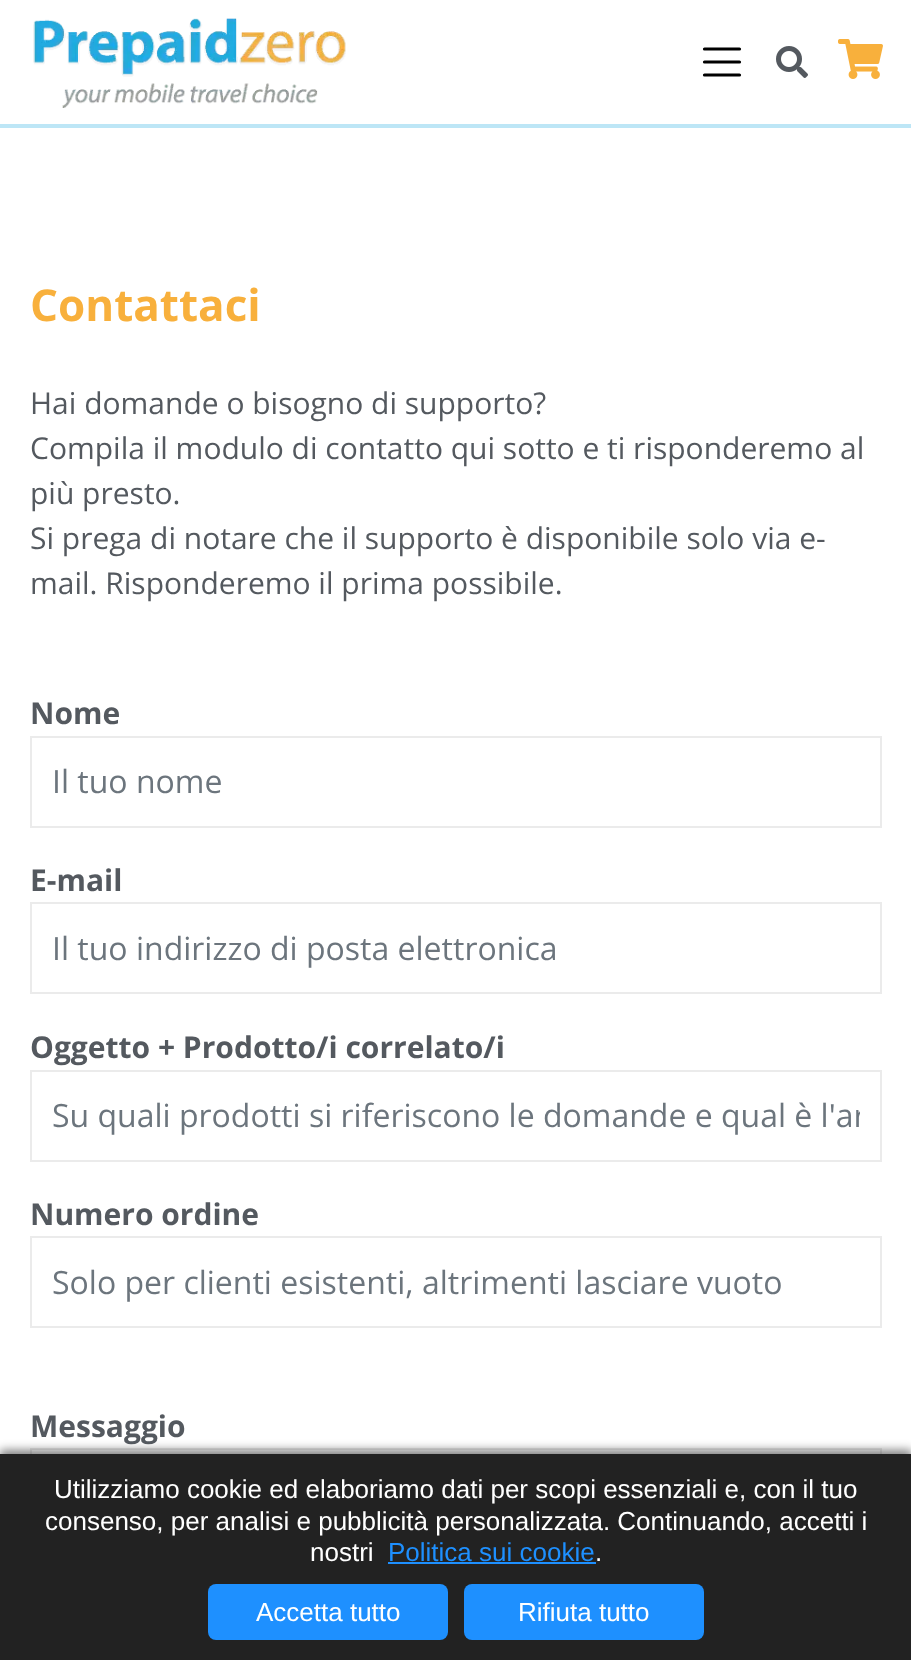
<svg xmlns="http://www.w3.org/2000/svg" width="911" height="1660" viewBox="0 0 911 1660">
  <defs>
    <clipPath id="clip1"><path d="M52 1094h808v44H52z"/></clipPath>
  </defs>
  <rect width="100%" height="100%" fill="#fff"/>
  <path d="M0 124h911v4H0z" fill="#bde6f6"/>
  <image x="33" y="18" width="313" height="90" href="img/1.png"/>
  <path d="M704.5 49H739.5M704.5 62H739.5M704.5 75H739.5" fill="none" stroke="#000" stroke-width="3.2" stroke-linecap="round"/>
  <image x="776" y="46" width="32" height="32" href="img/2.png"/>
  <image x="838" y="39" width="45" height="40" href="img/3.png"/>
  <path d="M31 737h850v90H31z" fill="none" stroke="#ebebeb" stroke-width="2"/>
  <path d="M31 903h850v90H31z" fill="none" stroke="#ebebeb" stroke-width="2"/>
  <path d="M31 1071h850v90H31z" fill="none" stroke="#ebebeb" stroke-width="2"/>
  <path d="M31 1237h850v90H31z" fill="none" stroke="#ebebeb" stroke-width="2"/>
  <path d="M31 1449h850v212H31z" fill="none" stroke="#ebebeb" stroke-width="2"/>
  <path d="M0 1450h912v206H0z" fill="#00000080" filter="blur(5px)"/>
  <path d="M0 1454h911v206H0z" fill="#222"/>
  <path d="M388 1562h208v2H388z" fill="#1e90ff"/>
  <rect x="208" y="1584" width="240" height="56" rx="8" fill="#1e90ff"/>
  <rect x="464" y="1584" width="240" height="56" rx="8" fill="#1e90ff"/>
  <text x="30" y="321" font-family="Open Sans" font-size="44" font-weight="bold" fill="#f8b03c">Contattaci</text>
  <g font-family="Open Sans" font-size="30" fill="#54595f">
    <text x="30" y="414">Hai domande o bisogno di supporto?</text>
    <text x="30" y="459">Compila il modulo di contatto qui sotto e ti risponderemo al</text>
    <text x="30" y="504">più presto.</text>
    <text x="30" y="549">Si prega di notare che il supporto è disponibile solo via e-</text>
    <text x="30" y="594">mail. Risponderemo il prima possibile.</text>
  </g>
  <text x="30" y="724" font-family="Open Sans" font-size="30" font-weight="bold" fill="#54595f">Nome</text>
  <text x="52" y="793" font-family="Open Sans" font-size="32" fill="#6c757d">Il tuo nome</text>
  <text x="30" y="891" font-family="Open Sans" font-size="30" font-weight="bold" fill="#54595f">E-mail</text>
  <text x="52" y="960" font-family="Open Sans" font-size="32" fill="#6c757d">Il tuo indirizzo di posta elettronica</text>
  <text x="30" y="1058" font-family="Open Sans" font-size="30" font-weight="bold" fill="#54595f">Oggetto + Prodotto/i correlato/i</text>
  <g clip-path="url(#clip1)">
    <text x="52" y="1127" font-family="Open Sans" font-size="32" fill="#6c757d">Su quali prodotti si riferiscono le domande e qual è l'ar</text>
  </g>
  <text x="30" y="1225" font-family="Open Sans" font-size="30" font-weight="bold" fill="#54595f">Numero ordine</text>
  <text x="52" y="1294" font-family="Open Sans" font-size="32" fill="#6c757d">Solo per clienti esistenti, altrimenti lasciare vuoto</text>
  <text x="30" y="1437" font-family="Open Sans" font-size="30" font-weight="bold" fill="#54595f">Messaggio</text>
  <g font-family="Liberation Sans" font-size="26" fill="#fff">
    <text x="54" y="1498">Utilizziamo cookie ed elaboriamo dati per scopi essenziali e, con il tuo</text>
    <text x="45" y="1530">consenso, per analisi e pubblicità personalizzata. Continuando, accetti i</text>
    <text x="310" y="1561">nostri</text>
  </g>
  <text x="388" y="1561" font-family="Liberation Sans" font-size="26" fill="#1e90ff">Politica sui cookie</text>
  <g font-family="Liberation Sans" font-size="26" fill="#fff">
    <text x="595" y="1561">.</text>
    <text x="256" y="1621">Accetta tutto</text>
    <text x="518" y="1621">Rifiuta tutto</text>
  </g>
</svg>
